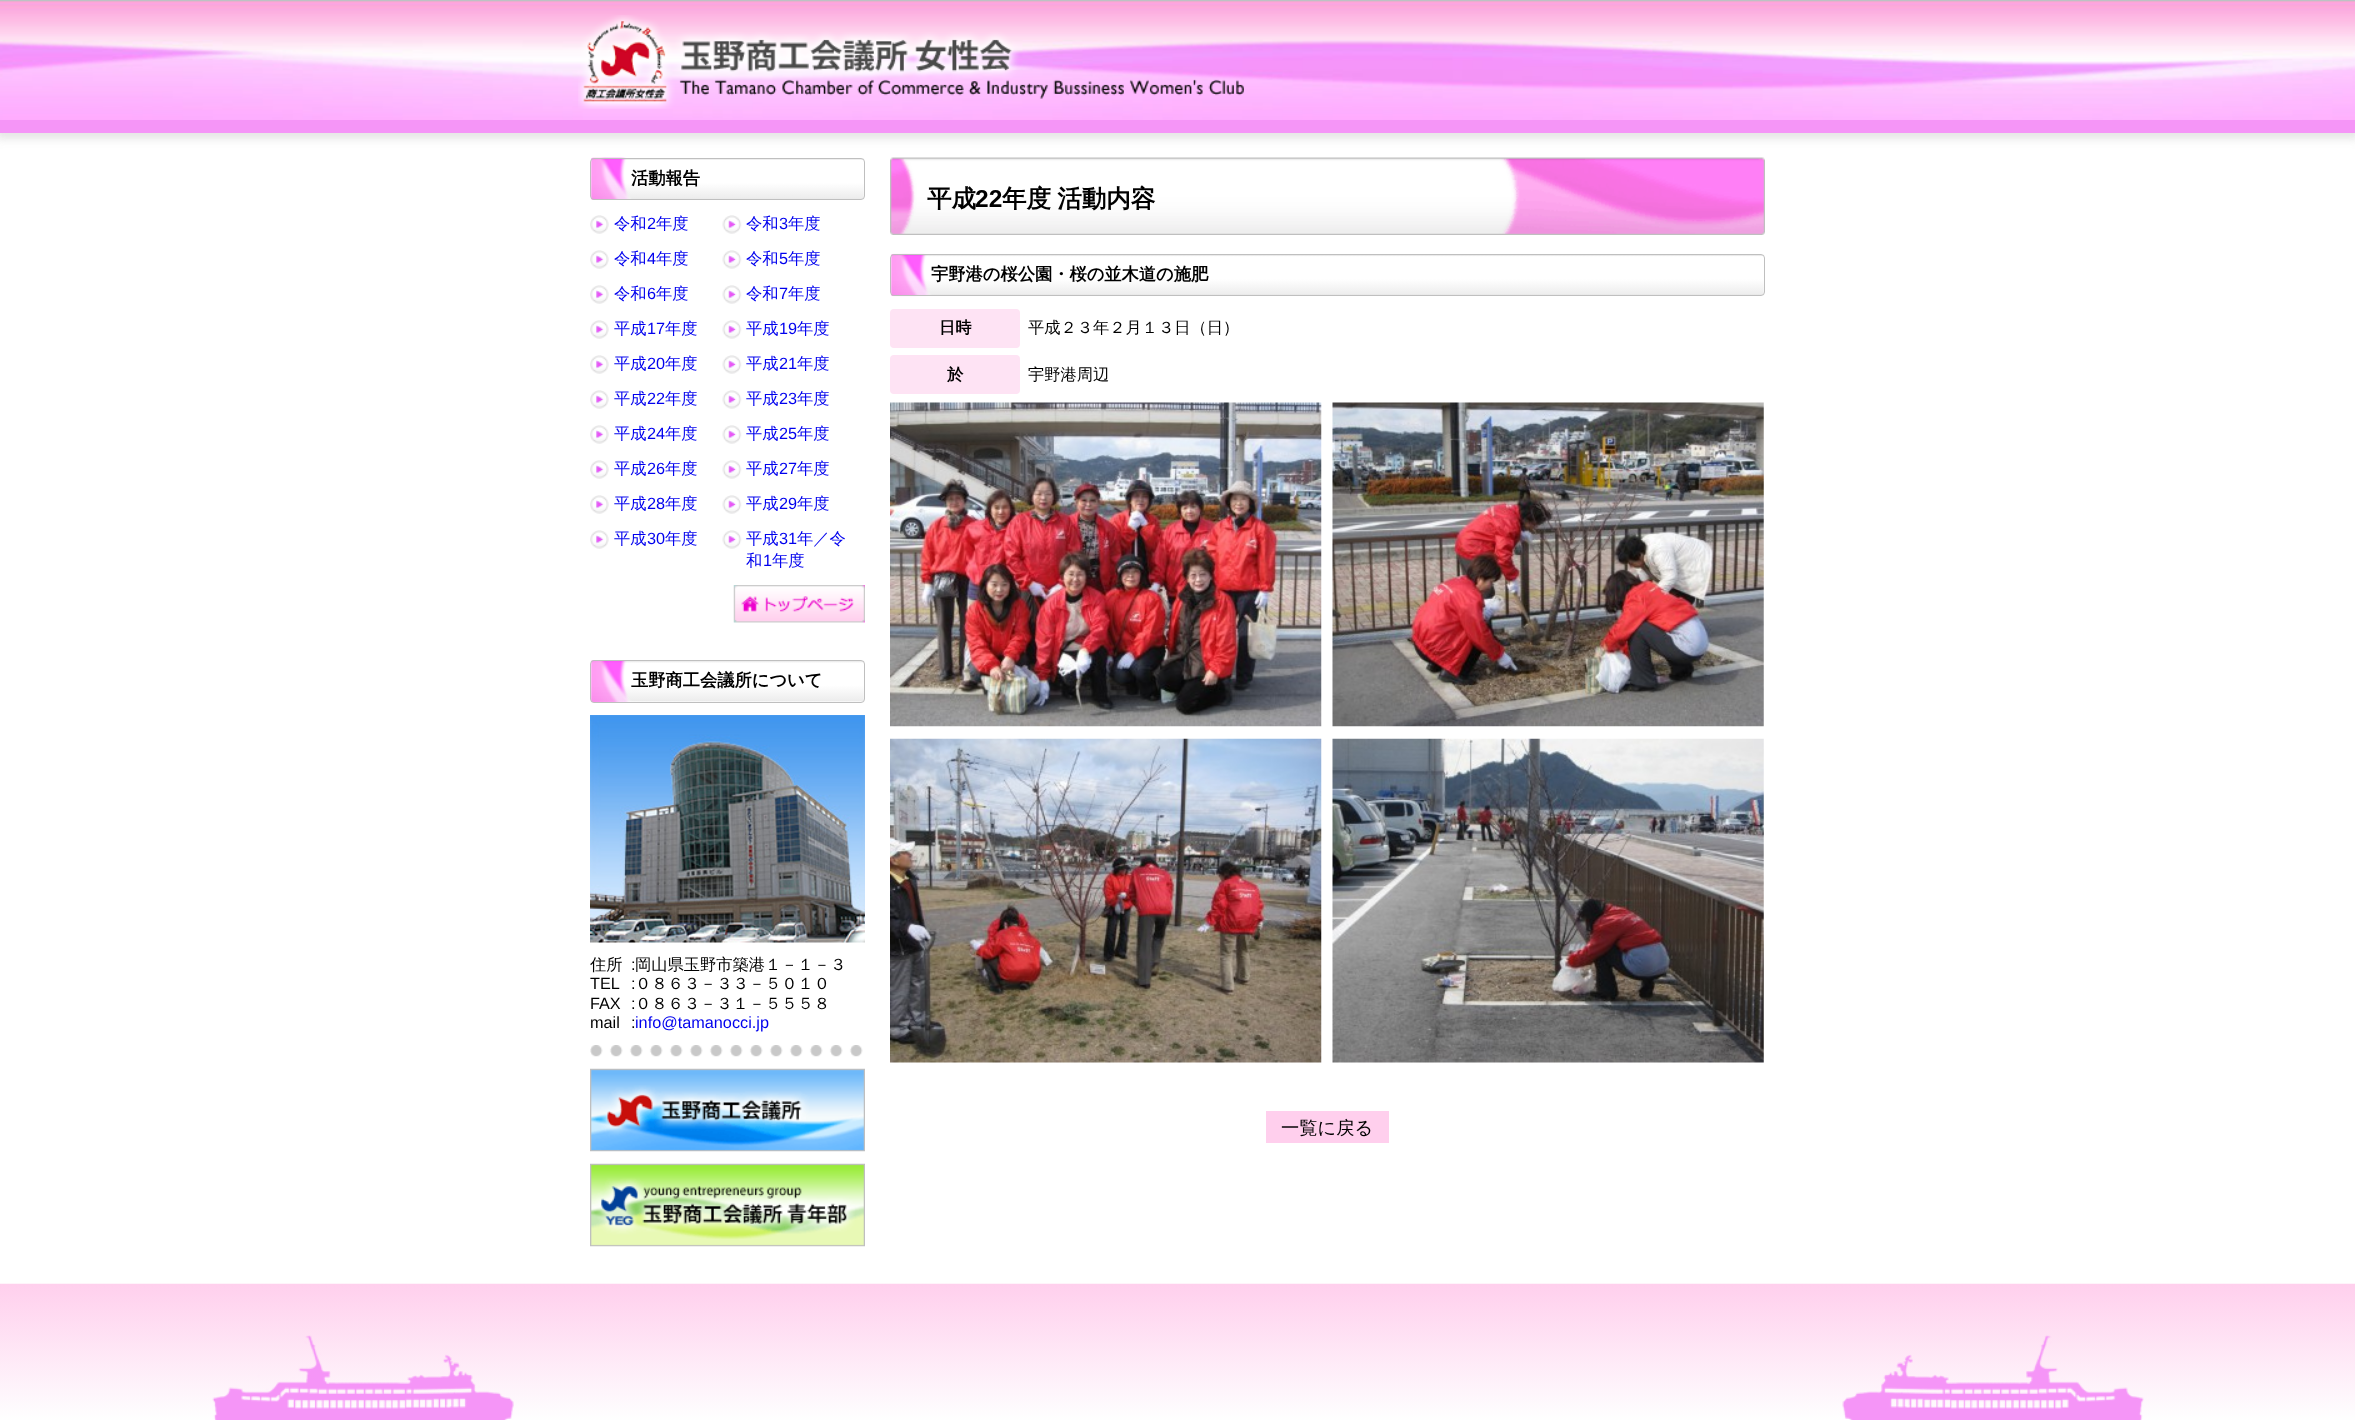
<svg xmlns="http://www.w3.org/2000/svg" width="2355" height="1420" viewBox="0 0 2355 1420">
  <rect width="100%" height="100%" fill="#fff"/>
  <path d="M-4 -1h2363v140H-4z" fill="#bfbfbf66" filter="blur(4px)"/>
  <image x="0" y="0" width="2355" height="120" href="img/1.png"/>
  <path d="M0 120h2355v13H0z" fill="#f595f7"/>
  <image x="578" y="15" width="666" height="94" href="img/2.png"/>
  <image x="591" y="157" width="273" height="43" href="img/3.png"/>
  <rect x="590.5" y="158.5" width="274" height="41" rx="3.5" fill="none" stroke="#bfbfbf"/>
  <image x="590" y="215" width="19" height="19" href="img/4.png"/>
  <image x="722" y="215" width="20" height="19" href="img/5.png"/>
  <image x="590" y="250" width="19" height="19" href="img/4.png"/>
  <image x="722" y="250" width="20" height="19" href="img/5.png"/>
  <image x="590" y="285" width="19" height="19" href="img/6.png"/>
  <image x="722" y="285" width="20" height="19" href="img/7.png"/>
  <image x="590" y="320" width="19" height="19" href="img/4.png"/>
  <image x="722" y="320" width="20" height="19" href="img/5.png"/>
  <image x="590" y="355" width="19" height="19" href="img/4.png"/>
  <image x="722" y="355" width="20" height="19" href="img/5.png"/>
  <image x="590" y="390" width="19" height="19" href="img/4.png"/>
  <image x="722" y="390" width="20" height="19" href="img/5.png"/>
  <image x="590" y="425" width="19" height="19" href="img/4.png"/>
  <image x="722" y="425" width="20" height="19" href="img/5.png"/>
  <image x="590" y="460" width="19" height="19" href="img/4.png"/>
  <image x="722" y="460" width="20" height="19" href="img/5.png"/>
  <image x="590" y="495" width="19" height="19" href="img/4.png"/>
  <image x="722" y="495" width="20" height="19" href="img/5.png"/>
  <image x="590" y="530" width="19" height="19" href="img/4.png"/>
  <image x="722" y="530" width="20" height="19" href="img/5.png"/>
  <image x="733" y="585" width="132" height="38" href="img/8.png"/>
  <image x="591" y="660" width="273" height="43" href="img/9.png"/>
  <rect x="590.5" y="660.5" width="274" height="42" rx="3.5" fill="none" stroke="#bfbfbf"/>
  <image x="590" y="715" width="275" height="228" href="img/10.png"/>
  <image x="590" y="1045" width="273" height="12" href="img/11.png"/>
  <image x="590" y="1068" width="275" height="84" href="img/12.png"/>
  <image x="590" y="1163" width="275" height="84" href="img/13.png"/>
  <image x="890" y="157" width="875" height="78" href="img/14.png"/>
  <image x="891" y="253" width="873" height="44" href="img/15.png"/>
  <rect x="890.5" y="254.5" width="874" height="41" rx="3.5" fill="none" stroke="#bfbfbf"/>
  <rect x="890" y="309" width="130" height="39" rx="4" fill="#fee3f4"/>
  <rect x="890" y="355" width="130" height="39" rx="4" fill="#fee3f4"/>
  <image x="890" y="402" width="432" height="325" href="img/16.png"/>
  <image x="1332" y="402" width="432" height="325" href="img/17.png"/>
  <image x="890" y="738" width="432" height="325" href="img/18.png"/>
  <image x="1332" y="738" width="432" height="325" href="img/19.png"/>
  <path d="M1266 1111h123v32H1266z" fill="#ffcfed"/>
  <image x="0" y="1283" width="2355" height="137" href="img/20.png"/>
  <text x="631" y="184" font-family="WenQuanYi Zen Hei" font-size="17.25" font-weight="bold" fill="#000">活動報告</text>
  <text x="614" y="229" font-family="WenQuanYi Zen Hei" font-size="16.25" font-weight="500" fill="#00e">令和</text>
  <text x="647" y="229" font-family="Liberation Sans" font-size="16.25" fill="#00e">2</text>
  <g font-family="WenQuanYi Zen Hei" font-size="16.25" font-weight="500" fill="#00e">
    <text x="656" y="229">年度</text>
    <text x="746" y="229">令和</text>
  </g>
  <text x="779" y="229" font-family="Liberation Sans" font-size="16.25" fill="#00e">3</text>
  <g font-family="WenQuanYi Zen Hei" font-size="16.25" font-weight="500" fill="#00e">
    <text x="788" y="229">年度</text>
    <text x="614" y="264">令和</text>
  </g>
  <text x="647" y="264" font-family="Liberation Sans" font-size="16.25" fill="#00e">4</text>
  <g font-family="WenQuanYi Zen Hei" font-size="16.25" font-weight="500" fill="#00e">
    <text x="656" y="264">年度</text>
    <text x="746" y="264">令和</text>
  </g>
  <text x="779" y="264" font-family="Liberation Sans" font-size="16.25" fill="#00e">5</text>
  <g font-family="WenQuanYi Zen Hei" font-size="16.25" font-weight="500" fill="#00e">
    <text x="788" y="264">年度</text>
    <text x="614" y="299">令和</text>
  </g>
  <text x="647" y="299" font-family="Liberation Sans" font-size="16.25" fill="#00e">6</text>
  <g font-family="WenQuanYi Zen Hei" font-size="16.25" font-weight="500" fill="#00e">
    <text x="656" y="299">年度</text>
    <text x="746" y="299">令和</text>
  </g>
  <text x="779" y="299" font-family="Liberation Sans" font-size="16.25" fill="#00e">7</text>
  <g font-family="WenQuanYi Zen Hei" font-size="16.25" font-weight="500" fill="#00e">
    <text x="788" y="299">年度</text>
    <text x="614" y="334">平成</text>
  </g>
  <text x="647" y="334" font-family="Liberation Sans" font-size="16.25" fill="#00e">17</text>
  <g font-family="WenQuanYi Zen Hei" font-size="16.25" font-weight="500" fill="#00e">
    <text x="665" y="334">年度</text>
    <text x="746" y="334">平成</text>
  </g>
  <text x="779" y="334" font-family="Liberation Sans" font-size="16.25" fill="#00e">19</text>
  <g font-family="WenQuanYi Zen Hei" font-size="16.25" font-weight="500" fill="#00e">
    <text x="797" y="334">年度</text>
    <text x="614" y="369">平成</text>
  </g>
  <text x="647" y="369" font-family="Liberation Sans" font-size="16.25" fill="#00e">20</text>
  <g font-family="WenQuanYi Zen Hei" font-size="16.25" font-weight="500" fill="#00e">
    <text x="665" y="369">年度</text>
    <text x="746" y="369">平成</text>
  </g>
  <text x="779" y="369" font-family="Liberation Sans" font-size="16.25" fill="#00e">21</text>
  <g font-family="WenQuanYi Zen Hei" font-size="16.25" font-weight="500" fill="#00e">
    <text x="797" y="369">年度</text>
    <text x="614" y="404">平成</text>
  </g>
  <text x="647" y="404" font-family="Liberation Sans" font-size="16.25" fill="#00e">22</text>
  <g font-family="WenQuanYi Zen Hei" font-size="16.25" font-weight="500" fill="#00e">
    <text x="665" y="404">年度</text>
    <text x="746" y="404">平成</text>
  </g>
  <text x="779" y="404" font-family="Liberation Sans" font-size="16.25" fill="#00e">23</text>
  <g font-family="WenQuanYi Zen Hei" font-size="16.25" font-weight="500" fill="#00e">
    <text x="797" y="404">年度</text>
    <text x="614" y="439">平成</text>
  </g>
  <text x="647" y="439" font-family="Liberation Sans" font-size="16.25" fill="#00e">24</text>
  <g font-family="WenQuanYi Zen Hei" font-size="16.25" font-weight="500" fill="#00e">
    <text x="665" y="439">年度</text>
    <text x="746" y="439">平成</text>
  </g>
  <text x="779" y="439" font-family="Liberation Sans" font-size="16.25" fill="#00e">25</text>
  <g font-family="WenQuanYi Zen Hei" font-size="16.25" font-weight="500" fill="#00e">
    <text x="797" y="439">年度</text>
    <text x="614" y="474">平成</text>
  </g>
  <text x="647" y="474" font-family="Liberation Sans" font-size="16.25" fill="#00e">26</text>
  <g font-family="WenQuanYi Zen Hei" font-size="16.25" font-weight="500" fill="#00e">
    <text x="665" y="474">年度</text>
    <text x="746" y="474">平成</text>
  </g>
  <text x="779" y="474" font-family="Liberation Sans" font-size="16.25" fill="#00e">27</text>
  <g font-family="WenQuanYi Zen Hei" font-size="16.25" font-weight="500" fill="#00e">
    <text x="797" y="474">年度</text>
    <text x="614" y="509">平成</text>
  </g>
  <text x="647" y="509" font-family="Liberation Sans" font-size="16.25" fill="#00e">28</text>
  <g font-family="WenQuanYi Zen Hei" font-size="16.25" font-weight="500" fill="#00e">
    <text x="665" y="509">年度</text>
    <text x="746" y="509">平成</text>
  </g>
  <text x="779" y="509" font-family="Liberation Sans" font-size="16.25" fill="#00e">29</text>
  <g font-family="WenQuanYi Zen Hei" font-size="16.25" font-weight="500" fill="#00e">
    <text x="797" y="509">年度</text>
    <text x="614" y="544">平成</text>
  </g>
  <text x="647" y="544" font-family="Liberation Sans" font-size="16.25" fill="#00e">30</text>
  <g font-family="WenQuanYi Zen Hei" font-size="16.25" font-weight="500" fill="#00e">
    <text x="665" y="544">年度</text>
    <text x="746" y="544">平成</text>
  </g>
  <text x="779" y="544" font-family="Liberation Sans" font-size="16.25" fill="#00e">31</text>
  <g font-family="WenQuanYi Zen Hei" font-size="16.25" font-weight="500" fill="#00e">
    <text x="797" y="544">年／令</text>
    <text x="746" y="566">和</text>
  </g>
  <text x="763" y="566" font-family="Liberation Sans" font-size="16.25" fill="#00e">1</text>
  <text x="772" y="566" font-family="WenQuanYi Zen Hei" font-size="16.25" font-weight="500" fill="#00e">年度</text>
  <text x="631" y="686" font-family="WenQuanYi Zen Hei" font-size="17.25" font-weight="bold" fill="#000">玉野商工会議所について</text>
  <text x="590" y="970" font-family="WenQuanYi Zen Hei" font-size="16.25" font-weight="500" fill="#000">住所</text>
  <text x="631" y="970" font-family="Liberation Sans" font-size="16.25" fill="#000">:</text>
  <text x="635" y="970" font-family="WenQuanYi Zen Hei" font-size="16.25" font-weight="500" fill="#000">岡山県玉野市築港１－１－３</text>
  <g font-family="Liberation Sans" font-size="16.25" fill="#000">
    <text x="590" y="989">TEL</text>
    <text x="631" y="989">:</text>
  </g>
  <text x="635" y="989" font-family="WenQuanYi Zen Hei" font-size="16.25" font-weight="500" fill="#000">０８６３－３３－５０１０</text>
  <g font-family="Liberation Sans" font-size="16.25" fill="#000">
    <text x="590" y="1009">FAX</text>
    <text x="631" y="1009">:</text>
  </g>
  <text x="635" y="1009" font-family="WenQuanYi Zen Hei" font-size="16.25" font-weight="500" fill="#000">０８６３－３１－５５５８</text>
  <g font-family="Liberation Sans" font-size="16.25" fill="#000">
    <text x="590" y="1028">mail</text>
    <text x="631" y="1028">:</text>
  </g>
  <text x="635" y="1028" font-family="Liberation Sans" font-size="16.25" fill="#00e">info@tamanocci.jp</text>
  <text x="927" y="207" font-family="WenQuanYi Zen Hei" font-size="24.5" font-weight="bold" fill="#000">平成</text>
  <text x="975" y="207" font-family="Liberation Sans" font-size="24.5" font-weight="bold" fill="#000">22</text>
  <text x="1002" y="207" word-spacing="-1" font-family="WenQuanYi Zen Hei" font-size="24.5" font-weight="bold" fill="#000">年度 活動内容</text>
  <text x="931" y="280" font-family="WenQuanYi Zen Hei" font-size="17.25" font-weight="bold" fill="#000">宇野港の桜公園・桜の並木道の施肥</text>
  <text x="939" y="333" font-family="WenQuanYi Zen Hei" font-size="16.25" font-weight="bold" fill="#000">日時</text>
  <text x="1028" y="333" font-family="WenQuanYi Zen Hei" font-size="16.25" font-weight="500" fill="#000">平成２３年２月１３日（日）</text>
  <text x="947" y="380" font-family="WenQuanYi Zen Hei" font-size="16.25" font-weight="bold" fill="#000">於</text>
  <text x="1028" y="380" font-family="WenQuanYi Zen Hei" font-size="16.25" font-weight="500" fill="#000">宇野港周辺</text>
  <text x="1281" y="1134" font-family="WenQuanYi Zen Hei" font-size="18.25" font-weight="500" fill="#000">一覧に戻る</text>
</svg>
